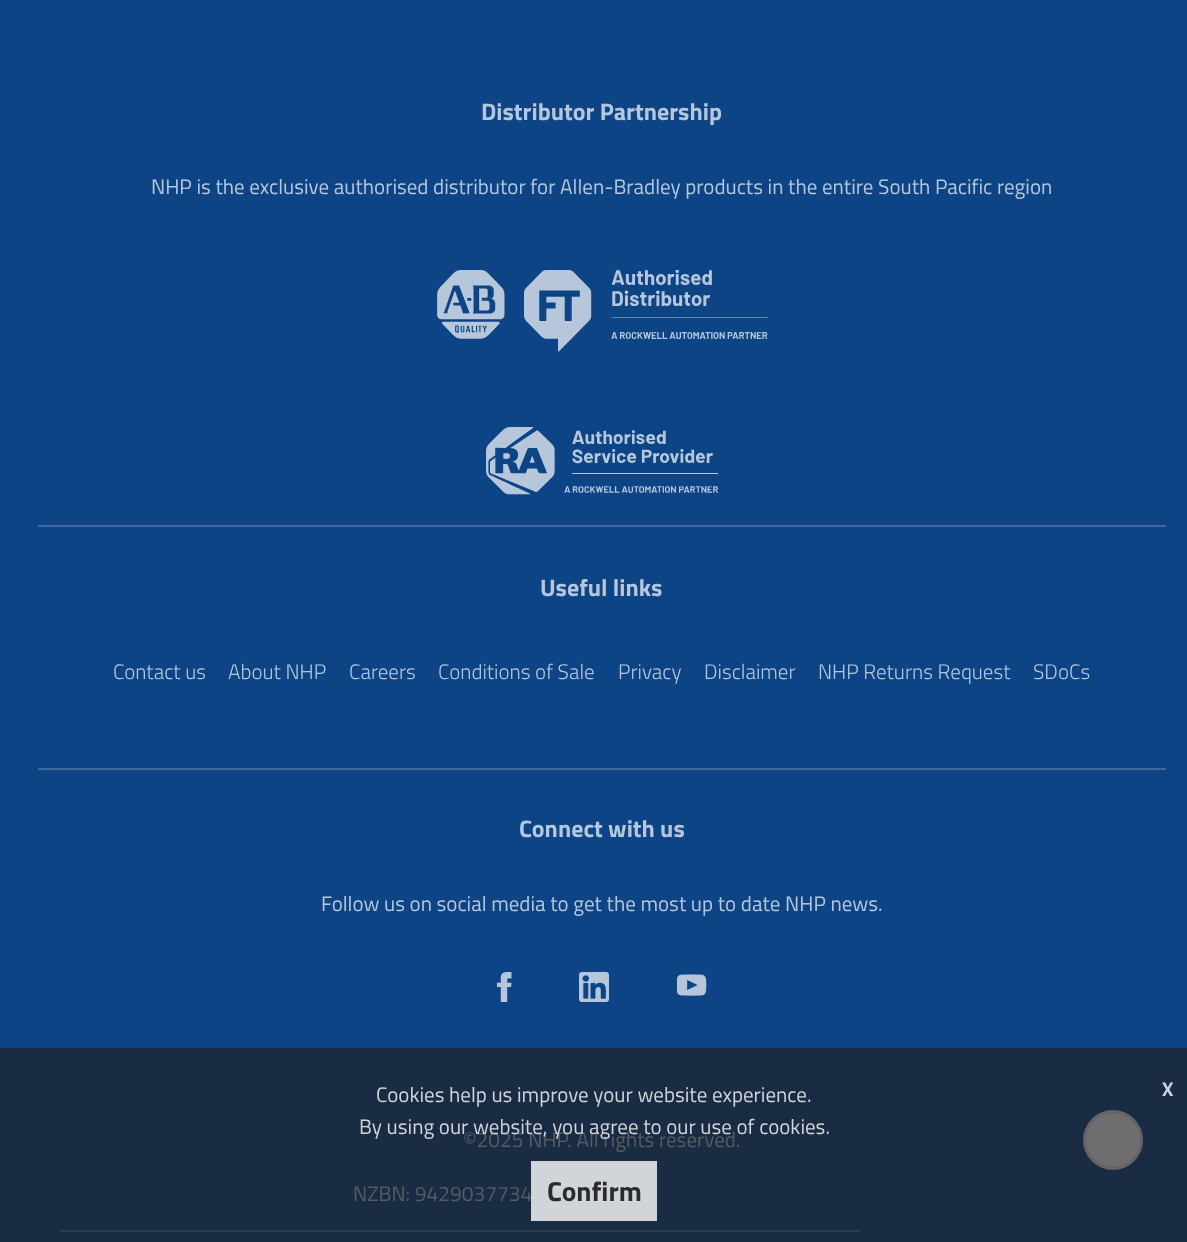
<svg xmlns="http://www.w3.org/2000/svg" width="1187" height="1242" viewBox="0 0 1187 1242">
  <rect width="100%" height="100%" fill="#0d4486"/>
  <path d="M0 1048h1187v194H0z" fill="#1a2c44"/>
  <path d="M38 525h1128v2H38z" fill="#3d699e"/>
  <image x="437" y="270" width="331" height="82" href="img/1.png"/>
  <image x="486" y="427" width="233" height="68" href="img/2.png"/>
  <path d="M38 768h1128v2H38z" fill="#3d699e"/>
  <image x="497" y="972" width="15" height="30" href="img/3.png"/>
  <image x="579" y="972" width="30" height="30" href="img/4.png"/>
  <image x="677" y="974" width="30" height="22" href="img/5.png"/>
  <path d="M60 1230h801v2H60z" fill="#2c3a4d"/>
  <circle cx="1113" cy="1140" r="30" fill="#6f6d6d"/>
  <circle cx="1113" cy="1140" r="28.5" fill="none" stroke="#1614141a" stroke-width="3"/>
  <text x="481" y="120" font-family="Titillium Web" font-size="24" font-weight="bold" fill="#b6c7db">Distributor Partnership</text>
  <text x="151" y="194" font-family="Titillium Web" font-size="21" fill="#b6c7db">NHP is the exclusive authorised distributor for Allen-Bradley products in the entire South Pacific region</text>
  <text x="540" y="596" font-family="Titillium Web" font-size="24" font-weight="bold" fill="#b6c7db">Useful links</text>
  <g font-family="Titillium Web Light" font-size="21" font-weight="300" fill="#b6c7db">
    <text x="113" y="679">Contact us</text>
    <text x="228" y="679">About NHP</text>
    <text x="349" y="679">Careers</text>
    <text x="438" y="679">Conditions of Sale</text>
    <text x="618" y="679">Privacy</text>
    <text x="704" y="679">Disclaimer</text>
    <text x="818" y="679">NHP Returns Request</text>
    <text x="1033" y="679">SDoCs</text>
  </g>
  <text x="519" y="837" font-family="Titillium Web" font-size="24" font-weight="bold" fill="#b6c7db">Connect with us</text>
  <text x="321" y="911" font-family="Titillium Web" font-size="21" fill="#b6c7db">Follow us on social media to get the most up to date NHP news.</text>
  <g font-family="Titillium Web" font-size="21" fill="#575b63">
    <text x="463" y="1147">©2025 NHP. All rights reserved.</text>
    <text x="353" y="1201">NZBN: 9429037734</text>
  </g>
  <g font-family="Titillium Web" font-size="21" fill="#d1d5da">
    <text x="376" y="1102">Cookies help us improve your website experience.</text>
    <text x="359" y="1134">By using our website, you agree to our use of cookies.</text>
  </g>
  <text x="1162" y="1096" font-family="Titillium Web" font-size="20" font-weight="bold" letter-spacing="4" fill="#d1d5da">X</text>
  <path d="M531 1161h126v60H531z" fill="#ffffffcc"/>
  <path d="M532 1162h124v58H532z" fill="none" stroke="#d2d2d2cc" stroke-width="2"/>
  <text x="547" y="1201" font-family="Titillium Web" font-size="27.5" font-weight="bold" fill="#2a2b2c">Confirm</text>
</svg>
